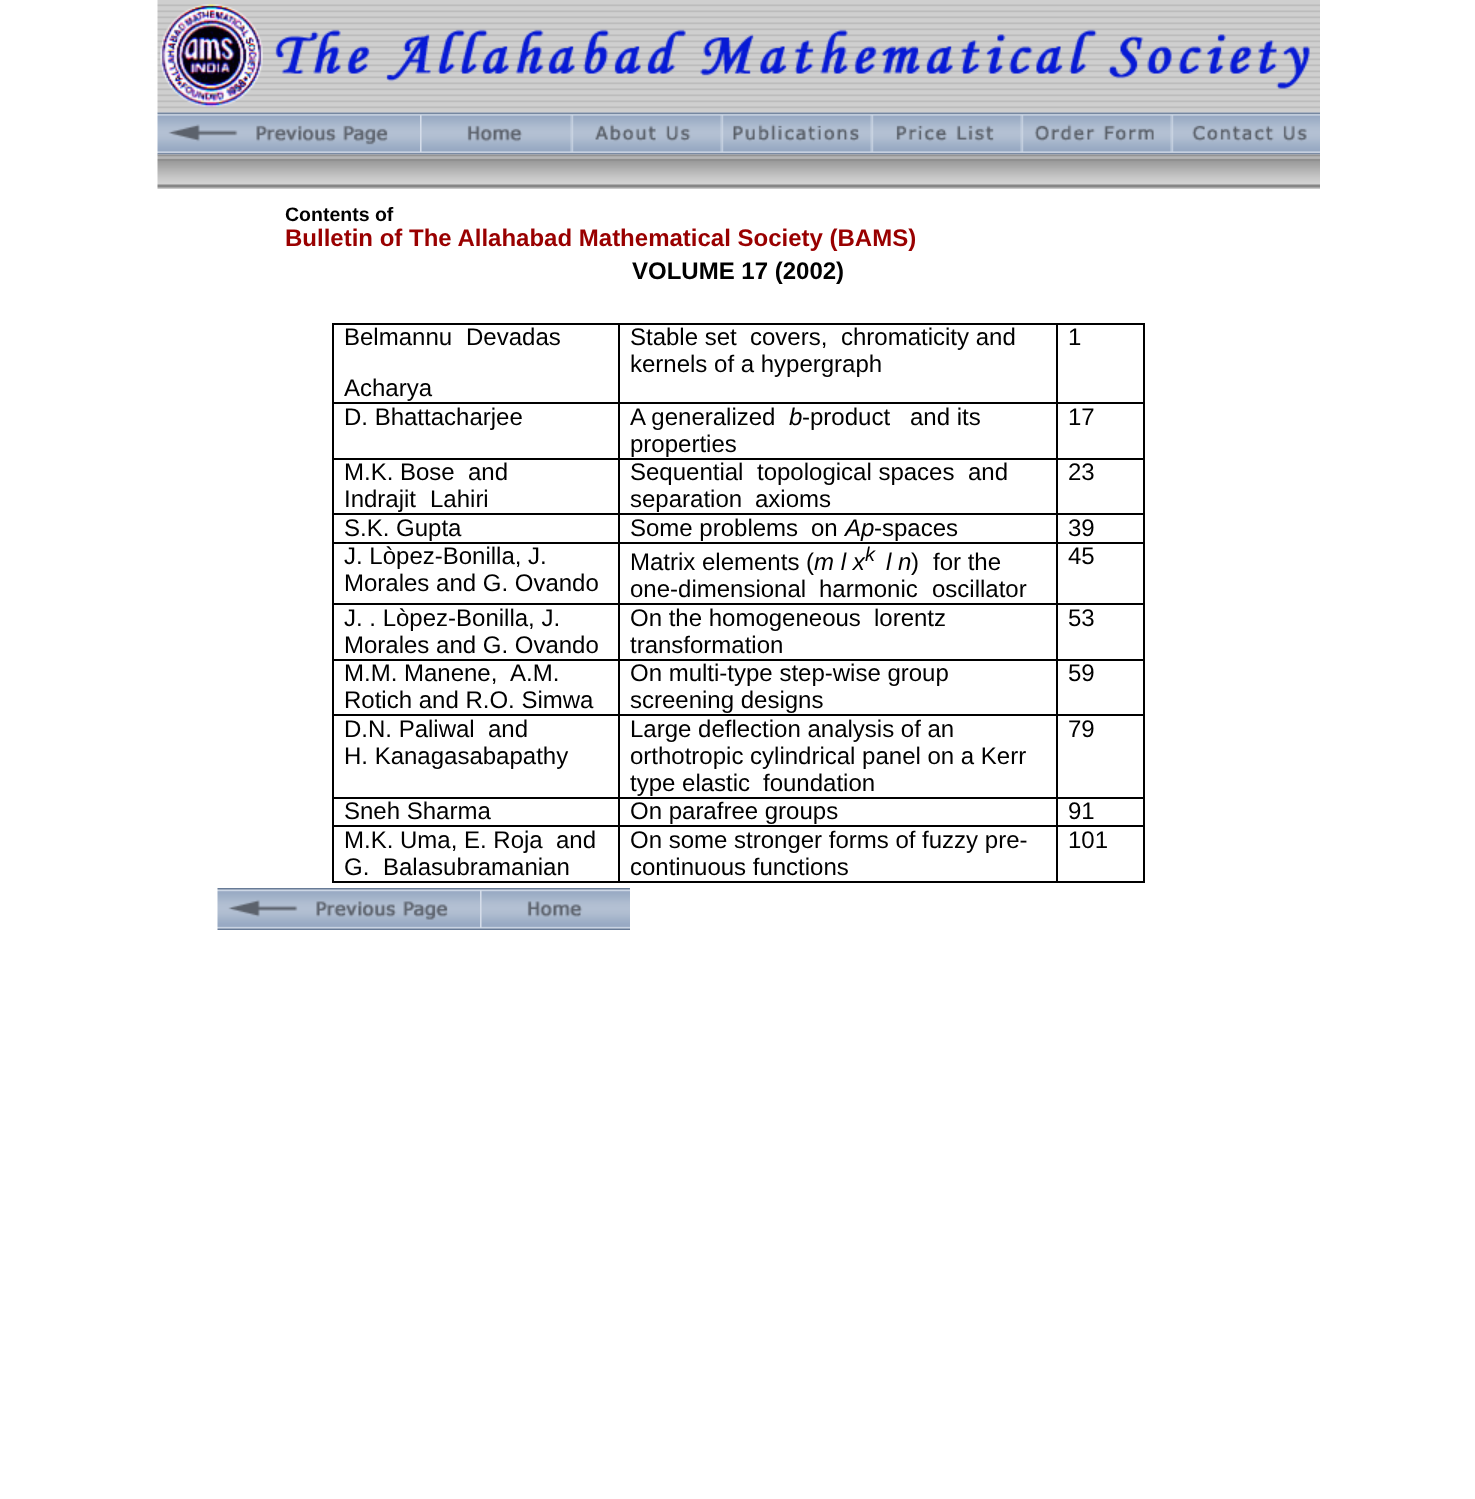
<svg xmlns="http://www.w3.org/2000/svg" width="1475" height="1499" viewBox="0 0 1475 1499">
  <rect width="100%" height="100%" fill="#fff"/>
  <image x="157" y="0" width="1163" height="113" href="img/1.png"/>
  <image x="157" y="112" width="263" height="43" href="img/2.png"/>
  <image x="420" y="112" width="150" height="43" href="img/3.png"/>
  <image x="570" y="112" width="150" height="43" href="img/4.png"/>
  <image x="720" y="112" width="150" height="43" href="img/5.png"/>
  <image x="870" y="112" width="150" height="43" href="img/6.png"/>
  <image x="1020" y="112" width="150" height="43" href="img/7.png"/>
  <image x="1170" y="112" width="150" height="43" href="img/8.png"/>
  <image x="157" y="154" width="1163" height="35" href="img/9.png"/>
  <path d="M332 323h813v2H332z" fill="#000"/>
  <path d="M1143 402h2v480H1143z" fill="#000"/>
  <path d="M1143 323h2v81H1143z" fill="#000"/>
  <path d="M1056 881h89v2H1056z" fill="#000"/>
  <path d="M1056 825h2v57H1056z" fill="#000"/>
  <path d="M1056 825h89v2H1056z" fill="#000"/>
  <path d="M1056 797h2v30H1056z" fill="#000"/>
  <path d="M1056 797h89v2H1056z" fill="#000"/>
  <path d="M1056 714h2v84H1056z" fill="#000"/>
  <path d="M1056 714h89v2H1056z" fill="#000"/>
  <path d="M1056 659h2v57H1056z" fill="#000"/>
  <path d="M1056 659h89v2H1056z" fill="#000"/>
  <path d="M1056 603h2v57H1056z" fill="#000"/>
  <path d="M1056 603h89v2H1056z" fill="#000"/>
  <path d="M1056 542h2v63H1056z" fill="#000"/>
  <path d="M1056 542h89v2H1056z" fill="#000"/>
  <path d="M1056 513h2v30H1056z" fill="#000"/>
  <path d="M1056 513h89v2H1056z" fill="#000"/>
  <path d="M1056 458h2v57H1056z" fill="#000"/>
  <path d="M1056 458h89v2H1056z" fill="#000"/>
  <path d="M1056 402h2v57H1056z" fill="#000"/>
  <path d="M1056 402h89v2H1056z" fill="#000"/>
  <path d="M1056 323h2v81H1056z" fill="#000"/>
  <path d="M618 881h440v2H618z" fill="#000"/>
  <path d="M618 825h2v57H618z" fill="#000"/>
  <path d="M618 825h440v2H618z" fill="#000"/>
  <path d="M618 797h2v30H618z" fill="#000"/>
  <path d="M618 797h440v2H618z" fill="#000"/>
  <path d="M618 714h2v84H618z" fill="#000"/>
  <path d="M618 714h440v2H618z" fill="#000"/>
  <path d="M618 659h2v57H618z" fill="#000"/>
  <path d="M618 659h440v2H618z" fill="#000"/>
  <path d="M618 603h2v57H618z" fill="#000"/>
  <path d="M618 603h440v2H618z" fill="#000"/>
  <path d="M618 542h2v63H618z" fill="#000"/>
  <path d="M618 542h440v2H618z" fill="#000"/>
  <path d="M618 513h2v30H618z" fill="#000"/>
  <path d="M618 513h440v2H618z" fill="#000"/>
  <path d="M618 458h2v57H618z" fill="#000"/>
  <path d="M618 458h440v2H618z" fill="#000"/>
  <path d="M618 402h2v57H618z" fill="#000"/>
  <path d="M618 402h440v2H618z" fill="#000"/>
  <path d="M618 323h2v81H618z" fill="#000"/>
  <path d="M332 881h288v2H332z" fill="#000"/>
  <path d="M332 825h2v57H332z" fill="#000"/>
  <path d="M332 825h288v2H332z" fill="#000"/>
  <path d="M332 797h2v30H332z" fill="#000"/>
  <path d="M332 797h288v2H332z" fill="#000"/>
  <path d="M332 714h2v84H332z" fill="#000"/>
  <path d="M332 714h288v2H332z" fill="#000"/>
  <path d="M332 659h2v57H332z" fill="#000"/>
  <path d="M332 659h288v2H332z" fill="#000"/>
  <path d="M332 603h2v57H332z" fill="#000"/>
  <path d="M332 603h288v2H332z" fill="#000"/>
  <path d="M332 542h2v63H332z" fill="#000"/>
  <path d="M332 542h288v2H332z" fill="#000"/>
  <path d="M332 513h2v30H332z" fill="#000"/>
  <path d="M332 513h288v2H332z" fill="#000"/>
  <path d="M332 458h2v57H332z" fill="#000"/>
  <path d="M332 458h288v2H332z" fill="#000"/>
  <path d="M332 402h2v57H332z" fill="#000"/>
  <path d="M332 402h288v2H332z" fill="#000"/>
  <path d="M332 323h2v81H332z" fill="#000"/>
  <image x="217" y="888" width="263" height="42" href="img/10.png"/>
  <image x="480" y="888" width="150" height="42" href="img/11.png"/>
  <text x="285" y="221" font-family="Liberation Sans" font-size="19.5" font-weight="bold" fill="#000">Contents of</text>
  <text x="285" y="246" font-family="Liberation Sans" font-size="24" font-weight="bold" fill="#900">Bulletin of The Allahabad Mathematical Society (BAMS)</text>
  <text x="632" y="279" font-family="Liberation Sans" font-size="24" font-weight="bold" fill="#000">VOLUME 17 (2002)</text>
  <g font-family="Liberation Sans" font-size="24" fill="#000">
    <text x="344" y="345">Belmannu</text>
    <text x="466" y="345">Devadas</text>
    <text x="344" y="396">Acharya</text>
    <text x="630" y="345">Stable set</text>
    <text x="750" y="345">covers,</text>
    <text x="841" y="345">chromaticity and</text>
    <text x="630" y="372">kernels of a hypergraph</text>
    <text x="1068" y="345">1</text>
    <text x="344" y="425">D. Bhattacharjee</text>
    <text x="630" y="425">A generalized</text>
  </g>
  <text x="789" y="425" font-family="Liberation Sans" font-size="24" font-style="italic" fill="#000">b</text>
  <g font-family="Liberation Sans" font-size="24" fill="#000">
    <text x="802" y="425">-product</text>
    <text x="910" y="425">and its</text>
    <text x="630" y="452">properties</text>
    <text x="1068" y="425">17</text>
    <text x="344" y="480">M.K. Bose</text>
    <text x="468" y="480">and</text>
    <text x="344" y="507">Indrajit</text>
    <text x="430" y="507">Lahiri</text>
    <text x="630" y="480">Sequential</text>
    <text x="757" y="480">topological spaces</text>
    <text x="968" y="480">and</text>
    <text x="630" y="507">separation</text>
    <text x="755" y="507">axioms</text>
    <text x="1068" y="480">23</text>
    <text x="344" y="536">S.K. Gupta</text>
    <text x="630" y="536">Some problems</text>
    <text x="811" y="536">on</text>
  </g>
  <text x="845" y="536" font-family="Liberation Sans" font-size="24" font-style="italic" fill="#000">Ap</text>
  <g font-family="Liberation Sans" font-size="24" fill="#000">
    <text x="874" y="536">-spaces</text>
    <text x="1068" y="536">39</text>
    <text x="344" y="564">J. Lòpez-Bonilla, J.</text>
    <text x="344" y="591">Morales and G. Ovando</text>
    <text x="630" y="570">Matrix elements (</text>
  </g>
  <text x="814" y="570" font-family="Liberation Sans" font-size="24" font-style="italic" fill="#000">m l x</text>
  <text x="865" y="561" font-family="Liberation Sans" font-size="20" font-style="italic" fill="#000">k</text>
  <text x="886" y="570" font-family="Liberation Sans" font-size="24" font-style="italic" fill="#000">l n</text>
  <g font-family="Liberation Sans" font-size="24" fill="#000">
    <text x="911" y="570">)</text>
    <text x="933" y="570">for the</text>
    <text x="630" y="597">one-dimensional</text>
    <text x="819" y="597">harmonic</text>
    <text x="932" y="597">oscillator</text>
    <text x="1068" y="564">45</text>
    <text x="344" y="626">J. . Lòpez-Bonilla, J.</text>
    <text x="344" y="653">Morales and G. Ovando</text>
    <text x="630" y="626">On the homogeneous</text>
    <text x="874" y="626">lorentz</text>
    <text x="630" y="653">transformation</text>
    <text x="1068" y="626">53</text>
    <text x="344" y="681">M.M. Manene,</text>
    <text x="510" y="681">A.M.</text>
    <text x="344" y="708">Rotich and R.O. Simwa</text>
    <text x="630" y="681">On multi-type step-wise group</text>
    <text x="630" y="708">screening designs</text>
    <text x="1068" y="681">59</text>
    <text x="344" y="737">D.N. Paliwal</text>
    <text x="488" y="737">and</text>
    <text x="344" y="764">H. Kanagasabapathy</text>
    <text x="630" y="737">Large deflection analysis of an</text>
    <text x="630" y="764">orthotropic cylindrical panel on a Kerr</text>
    <text x="630" y="791">type elastic</text>
    <text x="763" y="791">foundation</text>
    <text x="1068" y="737">79</text>
    <text x="344" y="819">Sneh Sharma</text>
    <text x="630" y="819">On parafree groups</text>
    <text x="1068" y="819">91</text>
    <text x="344" y="848">M.K. Uma, E. Roja</text>
    <text x="556" y="848">and</text>
    <text x="344" y="875">G.</text>
    <text x="383" y="875">Balasubramanian</text>
    <text x="630" y="848">On some stronger forms of fuzzy pre-</text>
    <text x="630" y="875">continuous functions</text>
    <text x="1068" y="848">101</text>
  </g>
</svg>
